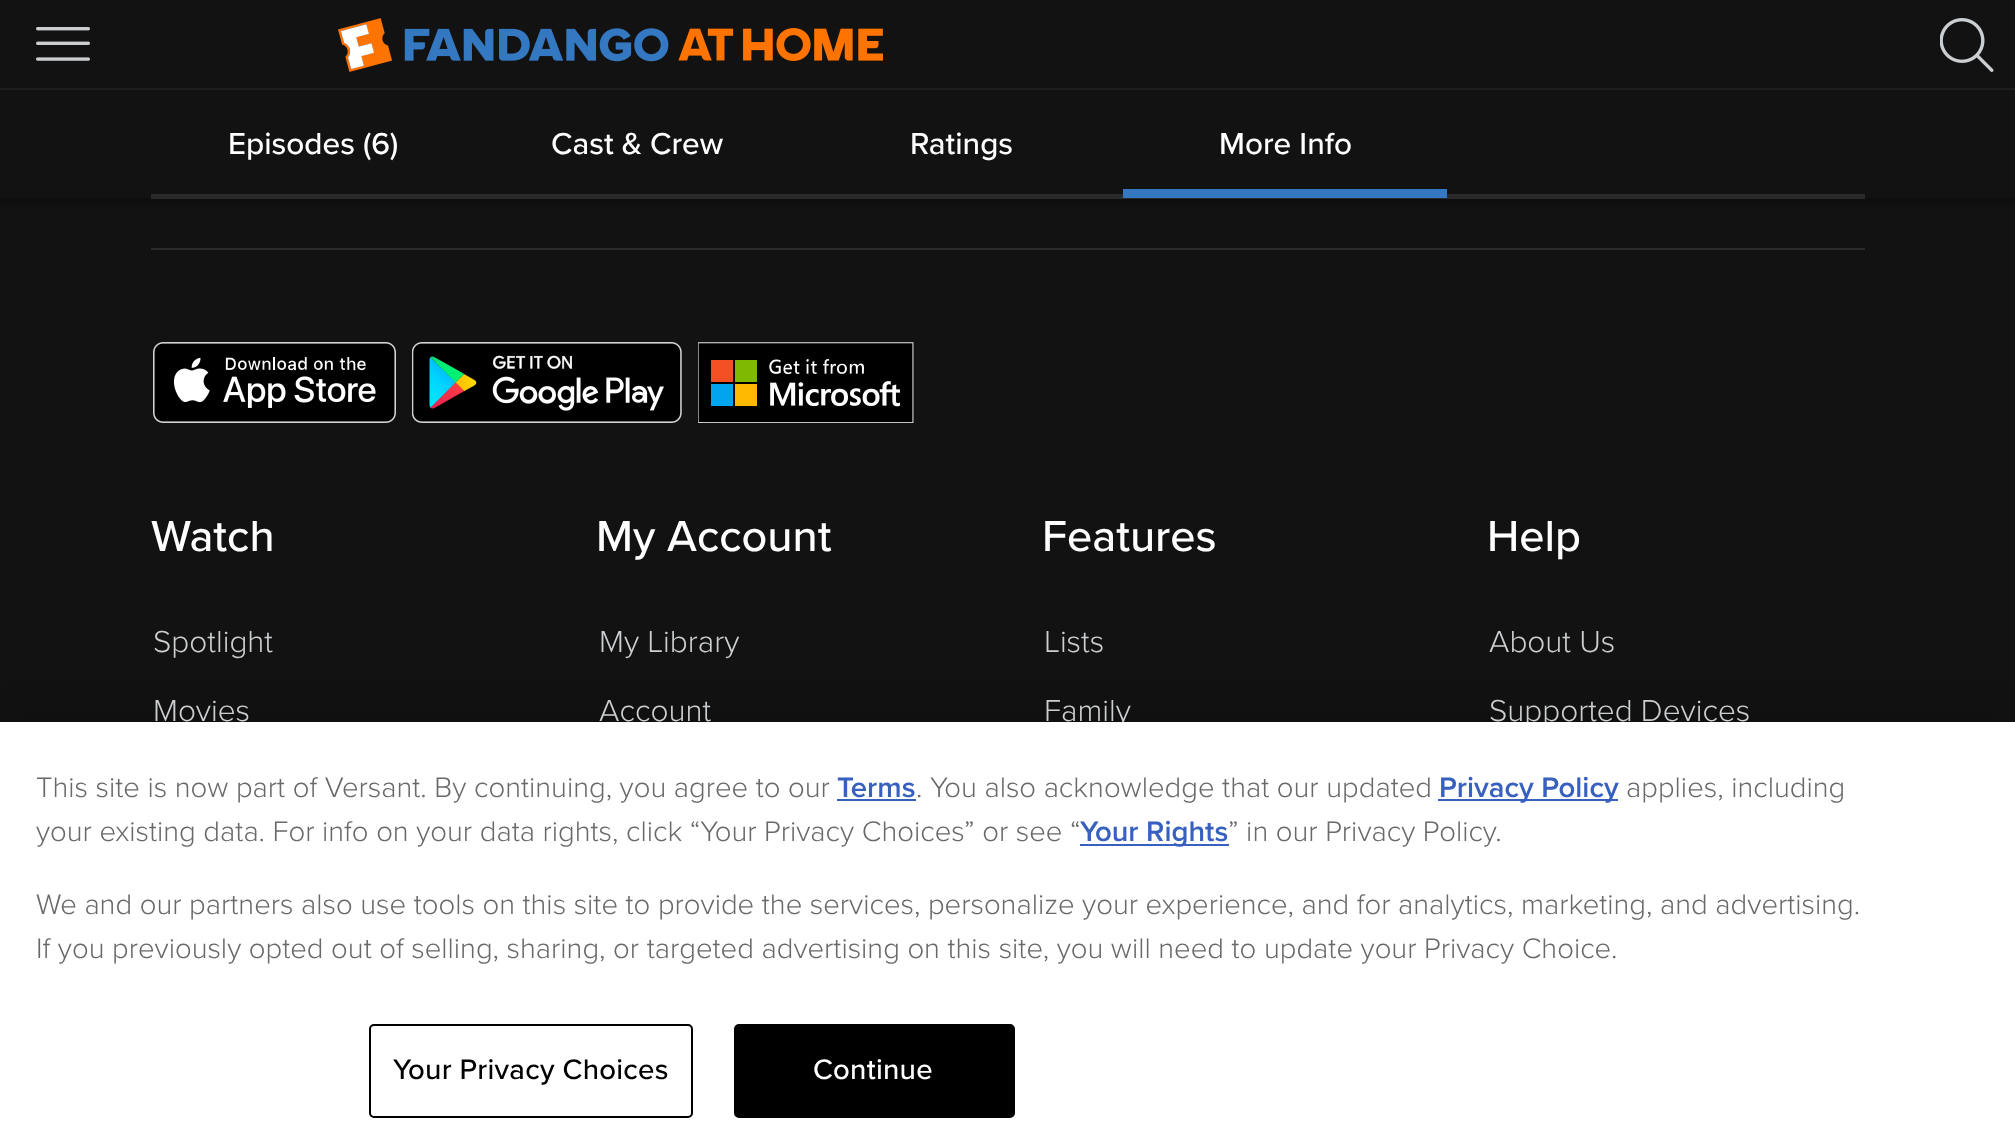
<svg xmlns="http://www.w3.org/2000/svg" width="2015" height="1140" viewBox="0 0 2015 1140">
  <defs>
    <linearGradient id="g1" gradientUnits="userSpaceOnUse" x1="1008" y1="221" x2="1008" y2="198"><stop offset="0" stop-color="#121212"/><stop offset="1" stop-color="#0e0e0e"/></linearGradient>
  </defs>
  <rect width="100%" height="100%" fill="#121212"/>
  <path d="M0 88h2015v2H0z" fill="#1e1e1e"/>
  <image x="36" y="27" width="54" height="34" href="img/1.png"/>
  <image x="338" y="18" width="545" height="54" href="img/2.png"/>
  <image x="1940" y="18" width="54" height="54" href="img/3.png"/>
  <path d="M0 198h2015v9H0z" fill="url(#g1)"/>
  <path d="M151 194h1714v5H151z" fill="#2a2a2a"/>
  <path d="M1123 189h324v9H1123z" fill="#3478c1"/>
  <path d="M151 248h1714v2H151z" fill="#2a2a2a"/>
  <image x="153" y="342" width="243" height="81" href="img/4.png"/>
  <image x="412" y="342" width="270" height="81" href="img/5.png"/>
  <image x="698" y="342" width="216" height="81" href="img/6.png"/>
  <path d="M0 722h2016v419H0z" fill="#00000033" filter="blur(20px)"/>
  <g font-family="Proxima Nova" font-size="31.5" font-weight="500" fill="#fff">
    <text x="228" y="154">Episodes (6)</text>
    <text x="551" y="154">Cast &amp; Crew</text>
    <text x="910" y="154">Ratings</text>
    <text x="1219" y="154">More Info</text>
  </g>
  <text x="151" y="551" font-family="Proxima Nova" font-size="45" font-weight="500" fill="#fff">Watch</text>
  <g font-family="Proxima Nova" font-size="31.5" font-weight="300" fill="#cccfd1">
    <text x="153" y="652">Spotlight</text>
    <text x="153" y="721">Movies</text>
  </g>
  <text x="596" y="551" font-family="Proxima Nova" font-size="45" font-weight="500" fill="#fff">My Account</text>
  <g font-family="Proxima Nova" font-size="31.5" font-weight="300" fill="#cccfd1">
    <text x="599" y="652">My Library</text>
    <text x="599" y="721">Account</text>
  </g>
  <text x="1042" y="551" font-family="Proxima Nova" font-size="45" font-weight="500" fill="#fff">Features</text>
  <g font-family="Proxima Nova" font-size="31.5" font-weight="300" fill="#cccfd1">
    <text x="1044" y="652">Lists</text>
    <text x="1044" y="721">Family</text>
  </g>
  <text x="1487" y="551" font-family="Proxima Nova" font-size="45" font-weight="500" fill="#fff">Help</text>
  <g font-family="Proxima Nova" font-size="31.5" font-weight="300" fill="#cccfd1">
    <text x="1489" y="652">About Us</text>
    <text x="1489" y="721">Supported Devices</text>
  </g>
  <path d="M0 722h2015v418H0z" fill="#fff"/>
  <text x="36" y="797" font-family="Proxima Nova" font-size="29.27" font-weight="300" fill="#696969">This site is now part of Versant. By continuing, you agree to our</text>
  <text x="837" y="797" font-family="Proxima Nova" font-size="29.27" font-weight="600" fill="#3860be">Terms</text>
  <path d="M837 799h79v2H837z" fill="#3860be"/>
  <text x="916" y="797" font-family="Proxima Nova" font-size="29.27" font-weight="300" fill="#696969">. You also acknowledge that our updated</text>
  <path d="M1438 799h180v2H1438z" fill="#3860be"/>
  <text x="1439" y="797" font-family="Proxima Nova" font-size="29.27" font-weight="600" fill="#3860be">Privacy Policy</text>
  <g font-family="Proxima Nova" font-size="29.27" font-weight="300" fill="#696969">
    <text x="1626" y="797">applies, including</text>
    <text x="36" y="841">your existing data. For info on your data rights, click “Your Privacy Choices” or see “</text>
  </g>
  <path d="M1080 844h149v2H1080z" fill="#3860be"/>
  <text x="1080" y="841" font-family="Proxima Nova" font-size="29.27" font-weight="600" fill="#3860be">Your Rights</text>
  <g font-family="Proxima Nova" font-size="29.27" font-weight="300" fill="#696969">
    <text x="1228" y="841">” in our Privacy Policy.</text>
    <text x="36" y="914">We and our partners also use tools on this site to provide the services, personalize your experience, and for analytics, marketing, and advertising.</text>
    <text x="36" y="958">If you previously opted out of selling, sharing, or targeted advertising on this site, you will need to update your Privacy Choice.</text>
  </g>
  <rect x="370" y="1025" width="322" height="92" rx="4" fill="none" stroke="#000" stroke-width="2"/>
  <text x="393" y="1079" font-family="Proxima Nova" font-size="29.27" font-weight="500" letter-spacing="0.25" fill="#000">Your Privacy Choices</text>
  <rect x="735" y="1025" width="279" height="92" rx="4" fill="#000" stroke="#000" stroke-width="2"/>
  <text x="813" y="1079" font-family="Proxima Nova" font-size="29.27" font-weight="500" letter-spacing="0.25" fill="#fff">Continue</text>
</svg>
